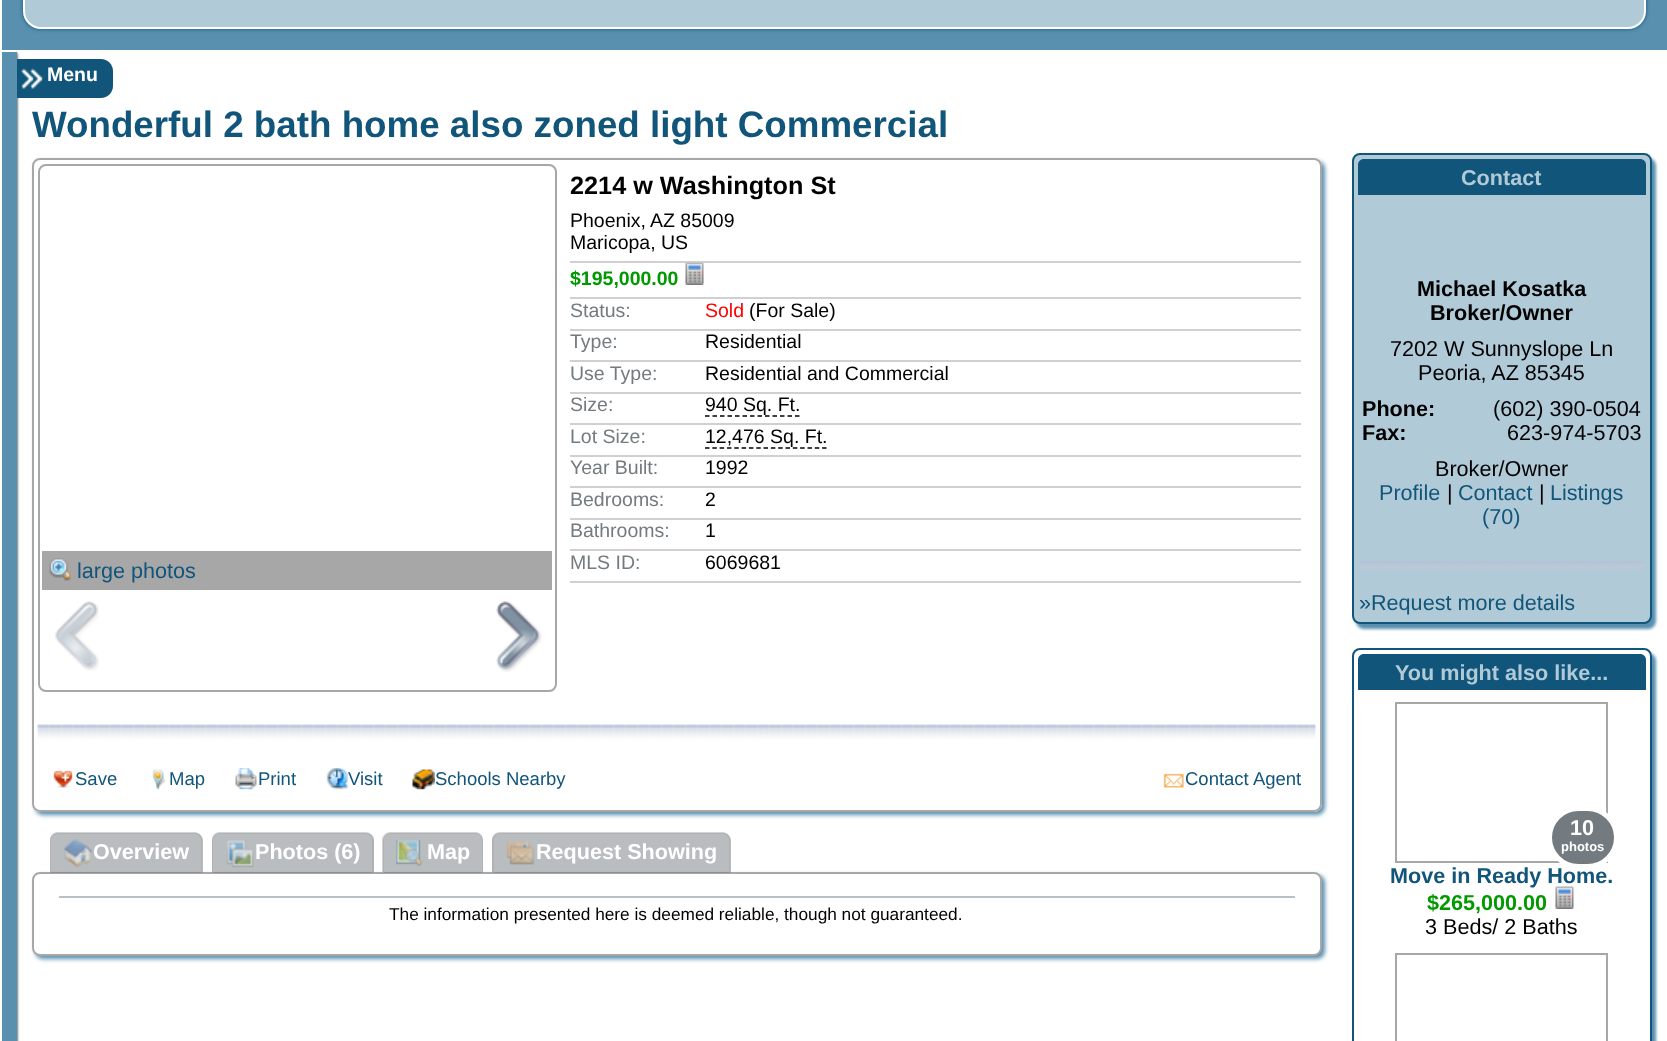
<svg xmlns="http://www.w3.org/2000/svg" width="1667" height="1041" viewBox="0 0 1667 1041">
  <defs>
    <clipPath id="clip1"><path d="M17 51h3v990H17z"/></clipPath>
    <clipPath id="clip2"><path d="M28 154H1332V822H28ZM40 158H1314C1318.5 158 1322 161.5 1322 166V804C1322 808.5 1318.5 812 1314 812H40C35.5 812 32 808.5 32 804V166C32 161.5 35.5 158 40 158Z" clip-rule="evenodd"/></clipPath>
    <clipPath id="clip3"><path d="M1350 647H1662V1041H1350ZM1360 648H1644C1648.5 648 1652 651.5 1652 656V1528C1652 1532.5 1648.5 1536 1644 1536H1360C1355.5 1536 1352 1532.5 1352 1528V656C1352 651.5 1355.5 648 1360 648Z" clip-rule="evenodd"/></clipPath>
  </defs>
  <rect width="100%" height="100%" fill="#5990b0"/>
  <path d="M0 0h2v1041H0z" fill="#fff"/>
  <path d="M2 50h1665v2H2z" fill="#fff"/>
  <rect x="23" y="-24" width="1623" height="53" rx="18" fill="#11557a" filter="blur(2px)"/>
  <rect x="24" y="-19" width="1621" height="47" rx="17" fill="#b1cad7" stroke="#fff" stroke-width="2"/>
  <path d="M17 52h1650v989H17z" fill="#fff"/>
  <g clip-path="url(#clip1)">
    <path d="M-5 53h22v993H-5z" fill="#000" filter="blur(1.5px)"/>
  </g>
  <path d="M17 59H101C107.5 59 113 64.5 113 71V86C113 92.5 107.5 98 101 98H17Z" fill="#11557a"/>
  <image x="20" y="68" width="23" height="21" href="img/1.png"/>
  <g clip-path="url(#clip2)">
    <rect x="35" y="161" width="1290" height="654" rx="8" fill="#5990b0" filter="blur(2px)"/>
  </g>
  <rect x="33" y="159" width="1288" height="652" rx="7" fill="none" stroke="#a7a7a7" stroke-width="2"/>
  <path d="M570 261h731v2H570z" fill="#d1d0d0"/>
  <path d="M570 297h731v2H570z" fill="#d1d0d0"/>
  <image x="685" y="262" width="19" height="23" href="img/2.png"/>
  <path d="M570 329h731v2H570z" fill="#d1d0d0"/>
  <path d="M570 360h731v2H570z" fill="#d1d0d0"/>
  <path d="M570 392h731v2H570z" fill="#d1d0d0"/>
  <path d="M570 423h731v2H570z" fill="#d1d0d0"/>
  <path d="M705 416H799.5" fill="none" stroke="#000" stroke-width="1.5" stroke-dasharray="4.5 3"/>
  <path d="M570 455h731v2H570z" fill="#d1d0d0"/>
  <path d="M705 448H826.5" fill="none" stroke="#000" stroke-width="1.5" stroke-dasharray="4.5 2.82"/>
  <path d="M570 486h731v2H570z" fill="#d1d0d0"/>
  <path d="M570 518h731v2H570z" fill="#d1d0d0"/>
  <path d="M570 549h731v2H570z" fill="#d1d0d0"/>
  <path d="M570 581h731v2H570z" fill="#d1d0d0"/>
  <rect x="39" y="165" width="517" height="526" rx="7" fill="none" stroke="#a7a7a7" stroke-width="2"/>
  <path d="M42 551h510v39H42z" fill="#a7a7a7"/>
  <image x="49" y="558" width="22" height="23" href="img/3.png"/>
  <image x="55" y="601" width="44" height="70" href="img/4.png"/>
  <image x="496" y="601" width="46" height="71" href="img/5.png"/>
  <image x="37" y="724" width="1279" height="15" href="img/6.png"/>
  <image x="53" y="770" width="20" height="18" href="img/7.png"/>
  <image x="152" y="769" width="14" height="21" href="img/8.png"/>
  <image x="235" y="768" width="22" height="22" href="img/9.png"/>
  <image x="326" y="768" width="22" height="22" href="img/10.png"/>
  <image x="412" y="769" width="23" height="21" href="img/11.png"/>
  <image x="1163" y="773" width="21" height="15" href="img/12.png"/>
  <rect x="35" y="875" width="1290" height="84" rx="8" fill="#5990b0" filter="blur(2px)"/>
  <rect x="33" y="873" width="1288" height="82" rx="7" fill="#fff" stroke="#a7a7a7" stroke-width="2"/>
  <path d="M58 833H195C199.5 833 203 836.5 203 841V873H50V841C50 836.5 53.5 833 58 833Z" fill="#737b8080"/>
  <path d="M57 832H195C199 832 202 836 202 840V873H50V840C50 836 53 832 57 832ZM57 834H195C198 834 201 837 201 840V873H51V840C51 837 54 834 57 834Z" fill="#a7a7a780" fill-rule="evenodd"/>
  <image x="64" y="838" width="28" height="30" href="img/13.png"/>
  <path d="M220 833H366C370.5 833 374 836.5 374 841V873H212V841C212 836.5 215.5 833 220 833Z" fill="#737b8080"/>
  <path d="M219 832H366C370 832 374 836 374 840V873H212V840C212 836 215 832 219 832ZM219 834H366C369 834 372 837 372 840V873H213V840C213 837 216 834 219 834Z" fill="#a7a7a780" fill-rule="evenodd"/>
  <image x="226" y="840" width="28" height="28" href="img/14.png"/>
  <path d="M391 833H475C479.5 833 483 836.5 483 841V873H383V841C383 836.5 386.5 833 391 833Z" fill="#737b8080"/>
  <path d="M390 832H476C480 832 483 836 483 840V873H382V840C382 836 386 832 390 832ZM390 834H476C479 834 482 837 482 840V873H384V840C384 837 387 834 390 834Z" fill="#a7a7a780" fill-rule="evenodd"/>
  <image x="396" y="839" width="26" height="27" href="img/15.png"/>
  <path d="M500 833H723C727.5 833 731 836.5 731 841V873H492V841C492 836.5 495.5 833 500 833Z" fill="#737b8080"/>
  <path d="M500 832H723C727 832 730 836 730 840V873H492V840C492 836 495 832 500 832ZM500 834H723C726 834 729 837 729 840V873H494V840C494 837 496 834 500 834Z" fill="#a7a7a780" fill-rule="evenodd"/>
  <image x="506" y="841" width="29" height="24" href="img/16.png"/>
  <path d="M59 896h1236v2H59z" fill="#b5c2c9"/>
  <rect x="1356" y="158" width="300" height="471" rx="8" fill="#5990b0" filter="blur(1.5px)"/>
  <rect x="1353" y="154" width="298" height="469" rx="7" fill="#b1cad7" stroke="#11557a" stroke-width="2"/>
  <path d="M1364 159H1640C1643.5 159 1646 161.5 1646 165V195H1358V165C1358 161.5 1360.5 159 1364 159Z" fill="#11557a"/>
  <image x="1359" y="561" width="285" height="10" href="img/17.png"/>
  <g clip-path="url(#clip3)">
    <rect x="1356" y="653" width="300" height="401" rx="8" fill="#5990b0" filter="blur(1.5px)"/>
  </g>
  <rect x="1353" y="649" width="298" height="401" rx="7" fill="none" stroke="#11557a" stroke-width="2"/>
  <path d="M1364 654H1640C1643.5 654 1646 656.5 1646 660V690H1358V660C1358 656.5 1360.5 654 1364 654Z" fill="#11557a"/>
  <path d="M1396 703h211v159H1396z" fill="none" stroke="#a7a7a7" stroke-width="2"/>
  <path d="M1396 954h211v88H1396z" fill="none" stroke="#a7a7a7" stroke-width="2"/>
  <text x="47" y="81" font-family="Liberation Sans" font-size="19.5" font-weight="bold" fill="#fff">Menu</text>
  <text x="32" y="137" font-family="Liberation Sans" font-size="36.75" font-weight="bold" fill="#11557a">Wonderful 2 bath home also zoned light Commercial</text>
  <text x="570" y="194" font-family="Liberation Sans" font-size="25.25" font-weight="bold" fill="#000">2214 w Washington St</text>
  <g font-family="Liberation Sans" font-size="19.5" fill="#000">
    <text x="570" y="227">Phoenix,</text>
    <text x="650" y="227">AZ 85009</text>
    <text x="570" y="249">Maricopa, US</text>
  </g>
  <text x="570" y="285" font-family="Liberation Sans" font-size="19.5" font-weight="bold" fill="#090">$195,000.00</text>
  <text x="570" y="317" font-family="Liberation Sans" font-size="19.5" fill="#737b80">Status:</text>
  <text x="705" y="317" font-family="Liberation Sans" font-size="19.5" fill="#f00">Sold</text>
  <text x="749" y="317" font-family="Liberation Sans" font-size="19.5" fill="#000">(For Sale)</text>
  <text x="570" y="348" font-family="Liberation Sans" font-size="19.5" fill="#737b80">Type:</text>
  <text x="705" y="348" font-family="Liberation Sans" font-size="19.5" fill="#000">Residential</text>
  <text x="570" y="380" font-family="Liberation Sans" font-size="19.5" fill="#737b80">Use Type:</text>
  <text x="705" y="380" font-family="Liberation Sans" font-size="19.5" fill="#000">Residential and Commercial</text>
  <text x="570" y="411" font-family="Liberation Sans" font-size="19.5" fill="#737b80">Size:</text>
  <text x="705" y="411" font-family="Liberation Sans" font-size="19.5" fill="#000">940 Sq. Ft.</text>
  <text x="570" y="443" font-family="Liberation Sans" font-size="19.5" fill="#737b80">Lot Size:</text>
  <text x="705" y="443" font-family="Liberation Sans" font-size="19.5" fill="#000">12,476 Sq. Ft.</text>
  <text x="570" y="474" font-family="Liberation Sans" font-size="19.5" fill="#737b80">Year Built:</text>
  <text x="705" y="474" font-family="Liberation Sans" font-size="19.5" fill="#000">1992</text>
  <text x="570" y="506" font-family="Liberation Sans" font-size="19.5" fill="#737b80">Bedrooms:</text>
  <text x="705" y="506" font-family="Liberation Sans" font-size="19.5" fill="#000">2</text>
  <text x="570" y="537" font-family="Liberation Sans" font-size="19.5" fill="#737b80">Bathrooms:</text>
  <text x="705" y="537" font-family="Liberation Sans" font-size="19.5" fill="#000">1</text>
  <text x="570" y="569" font-family="Liberation Sans" font-size="19.5" fill="#737b80">MLS ID:</text>
  <text x="705" y="569" font-family="Liberation Sans" font-size="19.5" fill="#000">6069681</text>
  <text x="77" y="578" font-family="Liberation Sans" font-size="21.6" fill="#11557a">large photos</text>
  <g font-family="Liberation Sans" font-size="18.5" fill="#11557a">
    <text x="75" y="785">Save</text>
    <text x="169" y="785">Map</text>
    <text x="258" y="785">Print</text>
    <text x="348" y="785">Visit</text>
    <text x="435" y="785">Schools Nearby</text>
    <text x="1185" y="785">Contact Agent</text>
  </g>
  <g font-family="Liberation Sans" font-size="21.6" font-weight="bold" fill="#fff">
    <text x="93" y="859">Overview</text>
    <text x="255" y="859">Photos (6)</text>
    <text x="427" y="859">Map</text>
    <text x="536" y="859">Request Showing</text>
  </g>
  <text x="389" y="920" font-family="Liberation Sans" font-size="17.25" fill="#000">The information presented here is deemed reliable, though not guaranteed.</text>
  <text x="1461" y="185" font-family="Liberation Sans" font-size="21.6" font-weight="bold" fill="#b1cad7">Contact</text>
  <g font-family="Liberation Sans" font-size="21.6" font-weight="bold" fill="#000">
    <text x="1417" y="296">Michael Kosatka</text>
    <text x="1430" y="320">Broker/Owner</text>
  </g>
  <g font-family="Liberation Sans" font-size="21.6" fill="#000">
    <text x="1390" y="356">7202 W Sunnyslope Ln</text>
    <text x="1418" y="380">Peoria, AZ 85345</text>
  </g>
  <text x="1362" y="416" font-family="Liberation Sans" font-size="21.6" font-weight="bold" fill="#000">Phone:</text>
  <text x="1493" y="416" font-family="Liberation Sans" font-size="21.6" fill="#000">(602) 390-0504</text>
  <text x="1362" y="440" font-family="Liberation Sans" font-size="21.6" font-weight="bold" fill="#000">Fax:</text>
  <g font-family="Liberation Sans" font-size="21.6" fill="#000">
    <text x="1507" y="440">623-974-5703</text>
    <text x="1435" y="476">Broker/Owner</text>
  </g>
  <text x="1379" y="500" font-family="Liberation Sans" font-size="21.6" fill="#11557a">Profile</text>
  <text x="1447" y="500" font-family="Liberation Sans" font-size="21.6" fill="#000">|</text>
  <text x="1458" y="500" font-family="Liberation Sans" font-size="21.6" fill="#11557a">Contact</text>
  <text x="1539" y="500" font-family="Liberation Sans" font-size="21.6" fill="#000">|</text>
  <g font-family="Liberation Sans" font-size="21.6" fill="#11557a">
    <text x="1550" y="500">Listings</text>
    <text x="1482" y="524">(70)</text>
    <text x="1359" y="610">»Request more details</text>
  </g>
  <text x="1395" y="680" font-family="Liberation Sans" font-size="21.6" font-weight="bold" fill="#b1cad7">You might also like...</text>
  <text x="1390" y="883" font-family="Liberation Sans" font-size="21.6" font-weight="bold" fill="#11557a">Move in Ready Home.</text>
  <rect x="1549.5" y="808.5" width="67" height="58" rx="29" fill="#737b80" stroke="#fff" stroke-width="5"/>
  <text x="1561" y="851" font-family="Liberation Sans" font-size="13" font-weight="bold" fill="#fff">photos</text>
  <text x="1570" y="835" font-family="Liberation Sans" font-size="21.6" font-weight="bold" fill="#fff">10</text>
  <text x="1427" y="910" font-family="Liberation Sans" font-size="21.6" font-weight="bold" fill="#090">$265,000.00</text>
  <image x="1555" y="886" width="19" height="23" href="img/18.png"/>
  <text x="1425" y="934" font-family="Liberation Sans" font-size="21.6" fill="#000">3 Beds/ 2 Baths</text>
</svg>
